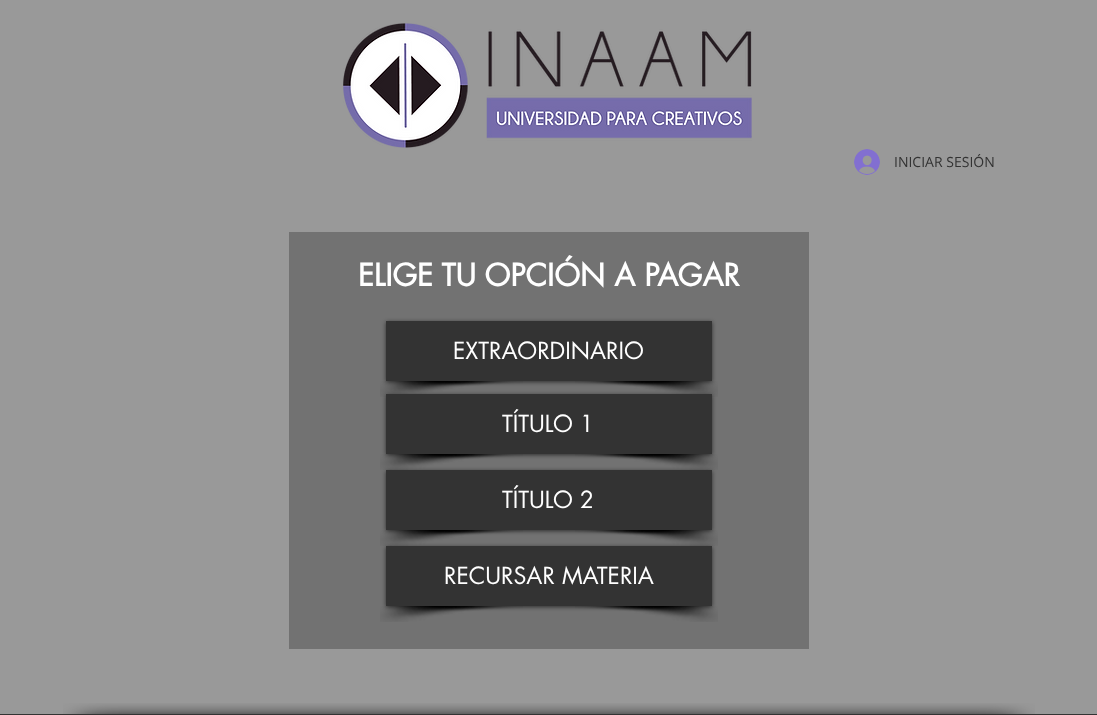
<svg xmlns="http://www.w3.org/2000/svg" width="1097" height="715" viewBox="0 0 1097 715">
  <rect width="100%" height="100%" fill="#999"/>
  <image x="343" y="23" width="409" height="125" href="img/1.png"/>
  <image x="854" y="149" width="26" height="26" href="img/2.png"/>
  <path d="M289 232h520v417H289z" fill="#727272"/>
  <image x="380" y="381" width="143" height="16" href="img/3.png"/>
  <image x="575" y="381" width="143" height="16" href="img/4.png"/>
  <path d="M386 322h326v60H386z" fill="#00000099" filter="blur(2px)"/>
  <path d="M386 321h326v60H386z" fill="#333"/>
  <image x="380" y="454" width="143" height="16" href="img/3.png"/>
  <image x="575" y="454" width="143" height="16" href="img/4.png"/>
  <path d="M386 395h326v60H386z" fill="#00000099" filter="blur(2px)"/>
  <path d="M386 394h326v60H386z" fill="#333"/>
  <image x="380" y="530" width="143" height="16" href="img/3.png"/>
  <image x="575" y="530" width="143" height="16" href="img/4.png"/>
  <path d="M386 471h326v60H386z" fill="#00000099" filter="blur(2px)"/>
  <path d="M386 470h326v60H386z" fill="#333"/>
  <image x="380" y="606" width="143" height="16" href="img/3.png"/>
  <image x="575" y="606" width="143" height="16" href="img/4.png"/>
  <path d="M386 547h326v60H386z" fill="#00000099" filter="blur(2px)"/>
  <path d="M386 546h326v60H386z" fill="#333"/>
  <image x="63" y="703" width="96" height="11" href="img/5.png"/>
  <image x="159" y="703" width="780" height="11" href="img/6.png"/>
  <image x="939" y="703" width="96" height="11" href="img/7.png"/>
  <path d="M0 714h1097v1H0z" fill="#333"/>
  <text x="894" y="167" font-family="Open Sans" font-size="14" fill="#333">INICIAR SESIÓN</text>
  <text x="358" y="286" font-family="futura" font-size="30" font-weight="bold" fill="#fff">ELIGE TU OPCIÓN A PAGAR</text>
  <g font-family="futura" font-size="23" fill="#fff">
    <text x="453" y="359">EXTRAORDINARIO</text>
    <text x="502" y="432">TÍTULO 1</text>
    <text x="502" y="508">TÍTULO 2</text>
    <text x="444" y="584">RECURSAR MATERIA</text>
  </g>
</svg>
